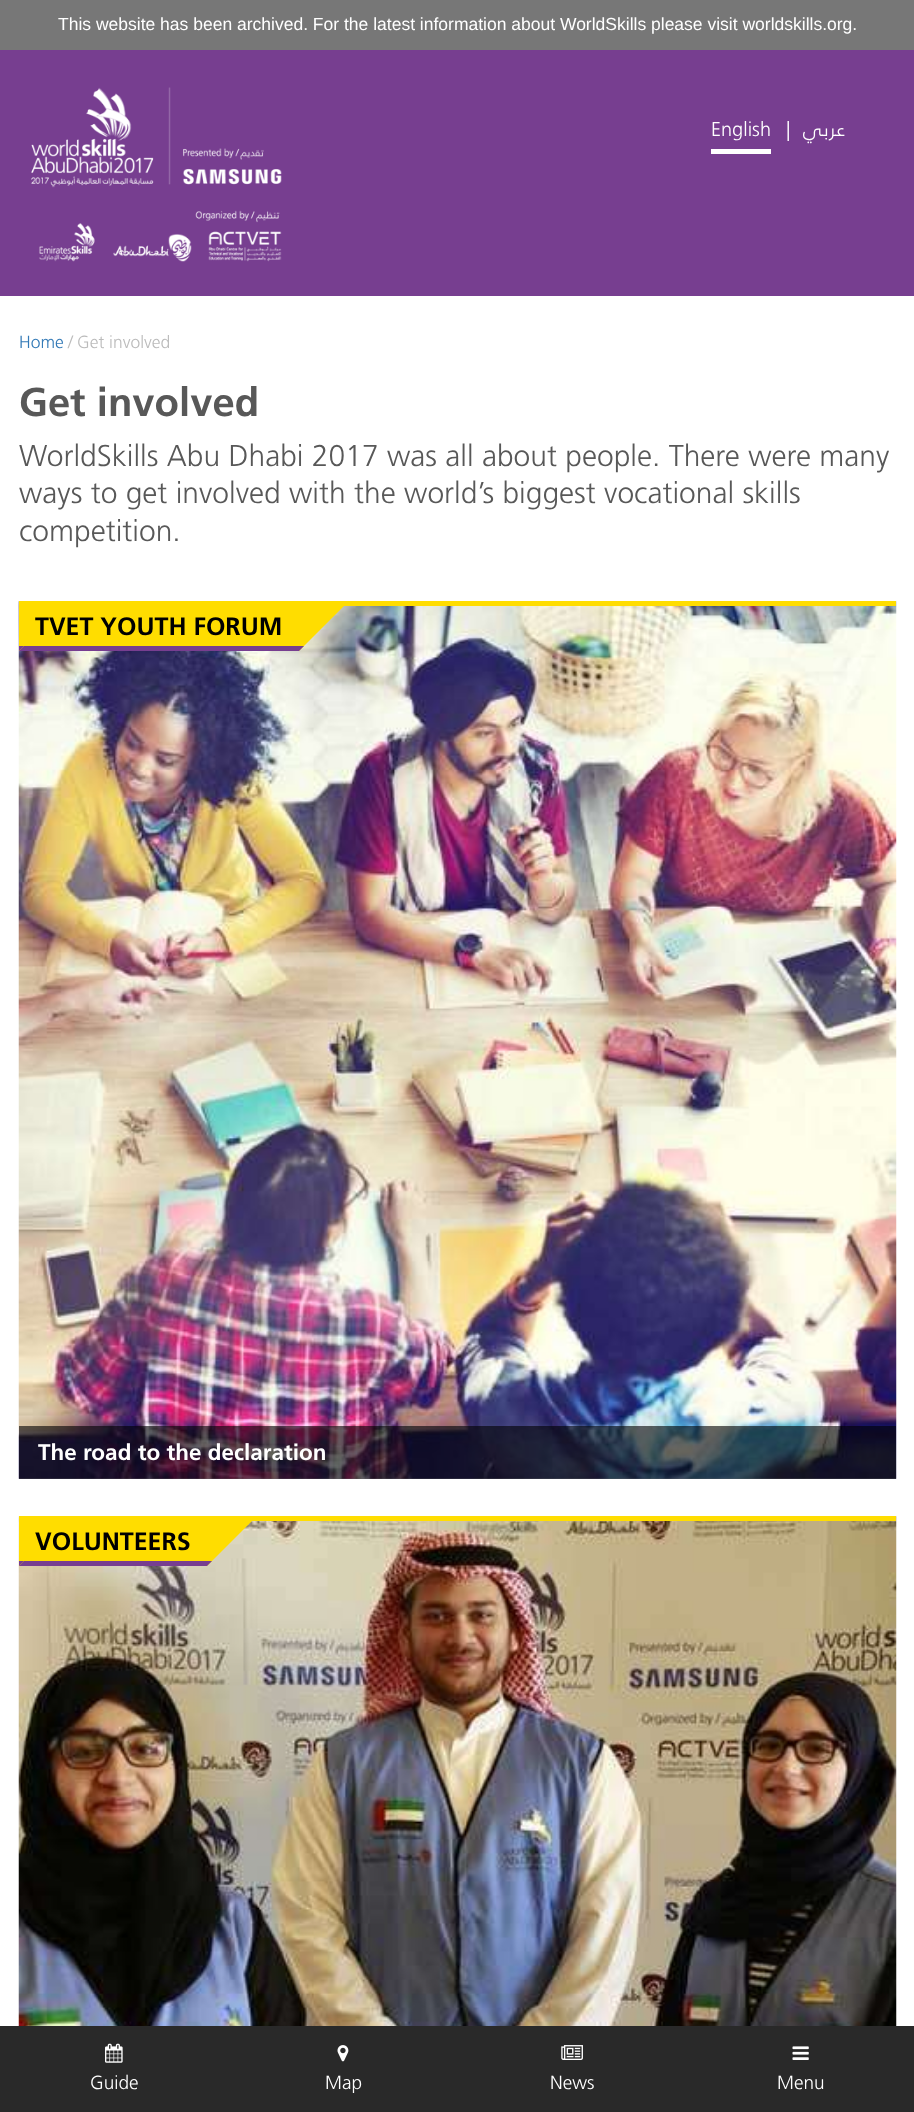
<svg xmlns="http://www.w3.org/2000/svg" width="914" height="2112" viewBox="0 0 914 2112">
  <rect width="100%" height="100%" fill="#fff"/>
  <path d="M0 0h914v50H0z" fill="#777"/>
  <path d="M0 50h914v246H0z" fill="#773e90"/>
  <image x="31" y="87" width="251" height="175" href="img/1.png"/>
  <path d="M711 149h60v5H711z" fill="#fff"/>
  <image x="18" y="601" width="879" height="878" href="img/2.png"/>
  <path d="M19 601h877v5H19z" fill="#fd0"/>
  <path d="M19 606h45v40H19z" fill="#fd0"/>
  <path d="M19 646h5v5H19z" fill="#773e90"/>
  <path d="M64 606H344L299 651H19Z" fill="#fd0"/>
  <path d="M24 646H304L299 651H19Z" fill="#773e90"/>
  <path d="M19 1426h877v53H19z" fill="#00000099"/>
  <image x="18" y="1516" width="879" height="510" href="img/3.png"/>
  <path d="M19 1516h877v5H19z" fill="#fd0"/>
  <path d="M19 1521h45v40H19z" fill="#fd0"/>
  <path d="M19 1561h5v5H19z" fill="#773e90"/>
  <path d="M64 1521H252L207 1566H19Z" fill="#fd0"/>
  <path d="M24 1561H212L207 1566H19Z" fill="#773e90"/>
  <path d="M0 2026h914v86H0z" fill="#292929"/>
  <image x="105" y="2043" width="18" height="20" href="img/4.png"/>
  <image x="337" y="2045" width="12" height="17" href="img/5.png"/>
  <image x="561" y="2045" width="22" height="15" href="img/6.png"/>
  <image x="792" y="2046" width="17" height="14" href="img/7.png"/>
  <text x="58" y="30" font-family="Liberation Sans" font-size="17.5" fill="#fff">This website has been archived. For the latest information about WorldSkills please visit worldskills.org.</text>
  <g font-family="Frutiger" font-size="20" font-weight="300" fill="#fff">
    <text x="711" y="136">English</text>
    <text x="786" y="136">|</text>
  </g>
  <text x="845" y="136" font-family="'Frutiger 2'" font-size="20" font-weight="300" direction="rtl" fill="#fff">عربي</text>
  <text x="19" y="348" font-family="Frutiger" font-size="17.5" font-weight="300" fill="#337ab7">Home</text>
  <g font-family="Frutiger" font-size="17.5" font-weight="300" fill="#bbb">
    <text x="68" y="348">/</text>
    <text x="77" y="348">Get involved</text>
  </g>
  <text x="19" y="416" font-family="Frutiger" font-size="40" font-weight="bold" fill="#585858">Get involved</text>
  <g font-family="Frutiger" font-size="30" font-weight="300" fill="#585858">
    <text x="19" y="466">WorldSkills Abu Dhabi 2017 was all about people. There were many</text>
    <text x="19" y="503">ways to get involved with the world’s biggest vocational skills</text>
    <text x="19" y="541">competition.</text>
  </g>
  <text x="35" y="635" font-family="Frutiger" font-size="25" font-weight="bold" fill="#000">TVET YOUTH FORUM</text>
  <text x="38" y="1460" font-family="Frutiger" font-size="22.5" font-weight="bold" fill="#fff">The road to the declaration</text>
  <text x="35" y="1550" font-family="Frutiger" font-size="25" font-weight="bold" fill="#000">VOLUNTEERS</text>
  <g font-family="Frutiger" font-size="19" font-weight="300" fill="#fff">
    <text x="90" y="2089">Guide</text>
    <text x="325" y="2089">Map</text>
    <text x="550" y="2089">News</text>
    <text x="777" y="2089">Menu</text>
  </g>
</svg>
